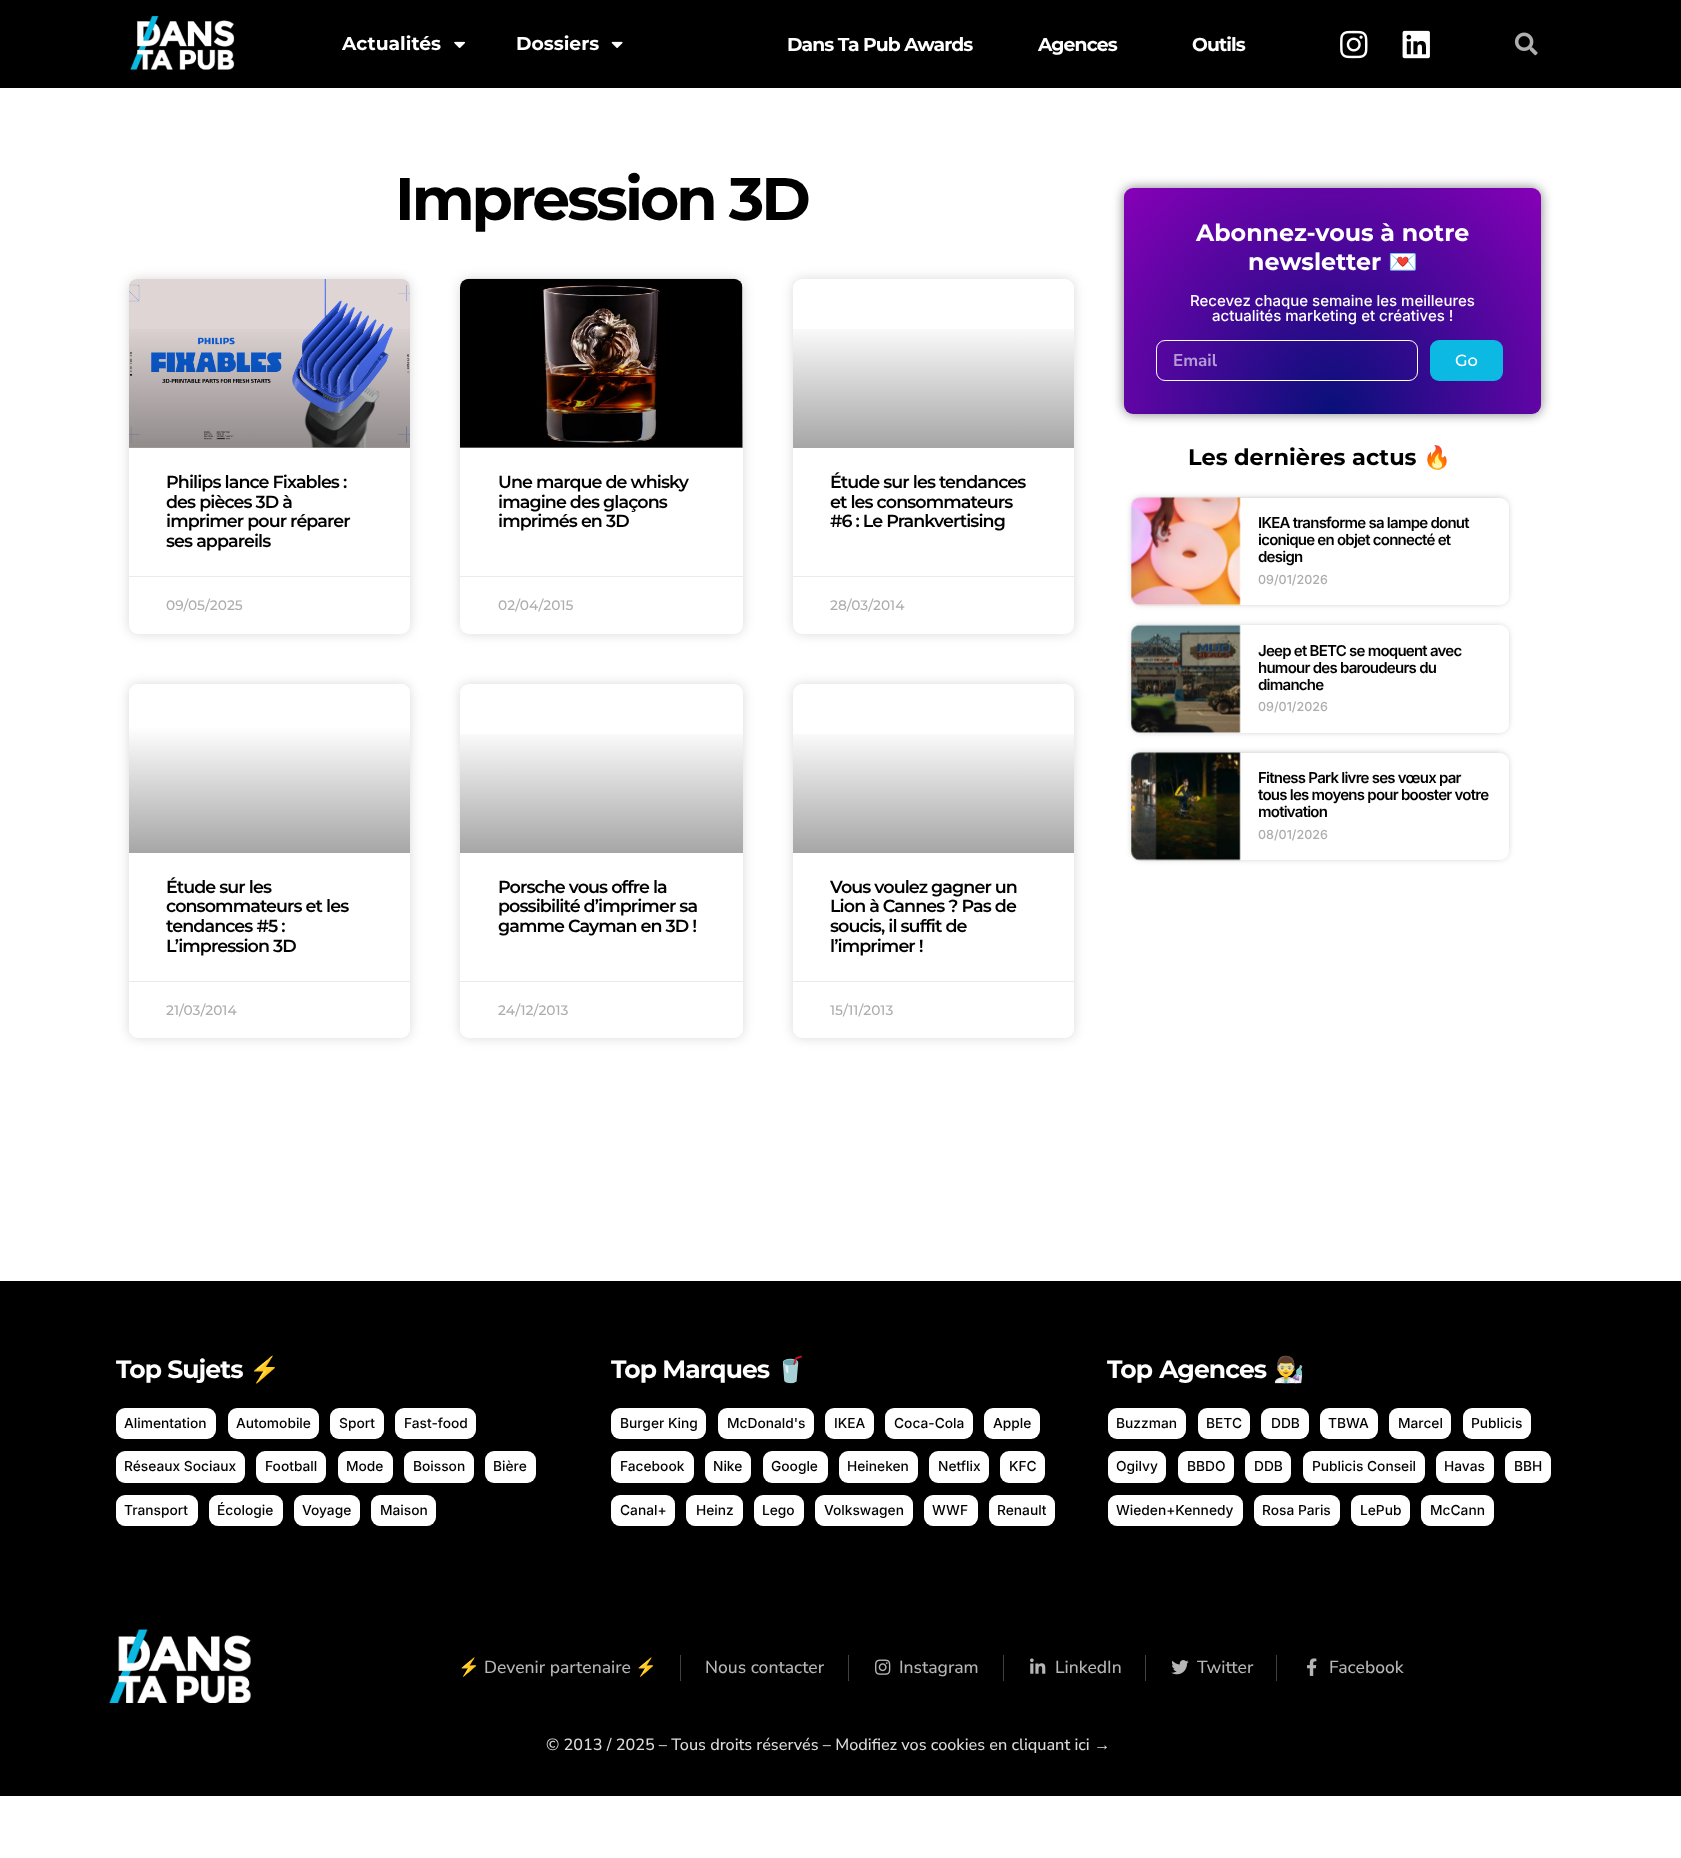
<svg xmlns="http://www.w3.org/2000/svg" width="1681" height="1858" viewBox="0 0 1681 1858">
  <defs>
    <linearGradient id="g1" gradientUnits="userSpaceOnUse" x1="269" y1="448" x2="269" y2="279"><stop offset="0" stop-color="#000" stop-opacity="0.35"/><stop offset="0.75" stop-color="#000" stop-opacity="0"/></linearGradient>
    <linearGradient id="g2" gradientUnits="userSpaceOnUse" x1="601" y1="448" x2="601" y2="279"><stop offset="0" stop-color="#000" stop-opacity="0.35"/><stop offset="0.75" stop-color="#000" stop-opacity="0"/></linearGradient>
    <linearGradient id="g3" gradientUnits="userSpaceOnUse" x1="933" y1="448" x2="933" y2="279"><stop offset="0" stop-color="#000" stop-opacity="0.35"/><stop offset="0.75" stop-color="#000" stop-opacity="0"/></linearGradient>
    <linearGradient id="g4" gradientUnits="userSpaceOnUse" x1="269" y1="853" x2="269" y2="684"><stop offset="0" stop-color="#a6a6a6"/><stop offset="0.75" stop-color="#fff"/></linearGradient>
    <linearGradient id="g5" gradientUnits="userSpaceOnUse" x1="601" y1="853" x2="601" y2="684"><stop offset="0" stop-color="#000" stop-opacity="0.35"/><stop offset="0.75" stop-color="#000" stop-opacity="0"/></linearGradient>
    <linearGradient id="g6" gradientUnits="userSpaceOnUse" x1="933" y1="853" x2="933" y2="684"><stop offset="0" stop-color="#000" stop-opacity="0.35"/><stop offset="0.75" stop-color="#000" stop-opacity="0"/></linearGradient>
    <radialGradient id="g7" gradientUnits="userSpaceOnUse" cx="0" cy="0" r="1" gradientTransform="matrix(295 0 0 320 1333 414)"><stop offset="0" stop-color="#081079"/><stop offset="1" stop-color="#8700b8"/></radialGradient>
  </defs>
  <rect width="100%" height="100%" fill="#fff"/>
  <path d="M0 0h1681v88H0z" fill="#000"/>
  <image x="130" y="16" width="105" height="54" href="img/1.png"/>
  <image x="454" y="41" width="11" height="7" href="img/2.png"/>
  <image x="611" y="41" width="12" height="7" href="img/3.png"/>
  <image x="1340" y="30" width="28" height="29" href="img/4.png"/>
  <image x="1402" y="30" width="28" height="29" href="img/5.png"/>
  <image x="1514" y="32" width="24" height="24" href="img/6.png"/>
  <rect x="129" y="279" width="281" height="355" rx="9" fill="#00000026" filter="blur(6px)"/>
  <rect x="129" y="279" width="281" height="355" rx="9" fill="#fff"/>
  <image x="128" y="279" width="282" height="169" href="img/7.png"/>
  <path d="M129 329h281v119H129z" fill="url(#g1)"/>
  <path d="M129 576h281v1H129z" fill="#eaeaea"/>
  <rect x="460" y="279" width="283" height="355" rx="9" fill="#00000026" filter="blur(6px)"/>
  <rect x="460" y="279" width="283" height="355" rx="9" fill="#fff"/>
  <image x="460" y="278" width="283" height="170" href="img/8.png"/>
  <path d="M460 329h283v119H460z" fill="url(#g2)"/>
  <path d="M460 576h283v1H460z" fill="#eaeaea"/>
  <rect x="793" y="279" width="281" height="355" rx="9" fill="#00000026" filter="blur(6px)"/>
  <rect x="793" y="279" width="281" height="355" rx="9" fill="#fff"/>
  <path d="M793 329h281v119H793z" fill="url(#g3)"/>
  <path d="M793 576h281v1H793z" fill="#eaeaea"/>
  <rect x="129" y="684" width="281" height="354" rx="9" fill="#00000026" filter="blur(6px)"/>
  <rect x="129" y="684" width="281" height="354" rx="9" fill="#fff"/>
  <path d="M138 684H401C406 684 410 688 410 693V853H129V693C129 688 133 684 138 684Z" fill="url(#g4)"/>
  <path d="M129 981h281v1H129z" fill="#eaeaea"/>
  <rect x="460" y="684" width="283" height="354" rx="9" fill="#00000026" filter="blur(6px)"/>
  <rect x="460" y="684" width="283" height="354" rx="9" fill="#fff"/>
  <path d="M460 734h283v119H460z" fill="url(#g5)"/>
  <path d="M460 981h283v1H460z" fill="#eaeaea"/>
  <rect x="793" y="684" width="281" height="354" rx="9" fill="#00000026" filter="blur(6px)"/>
  <rect x="793" y="684" width="281" height="354" rx="9" fill="#fff"/>
  <path d="M793 734h281v119H793z" fill="url(#g6)"/>
  <path d="M793 981h281v1H793z" fill="#eaeaea"/>
  <rect x="1124" y="188" width="417" height="226" rx="9" fill="#00000080" filter="blur(6px)"/>
  <rect x="1124" y="188" width="417" height="226" rx="9" fill="url(#g7)"/>
  <rect x="1156.5" y="340.5" width="261" height="40" rx="8.5" fill="none" stroke="#fff"/>
  <rect x="1430" y="340" width="73" height="41" rx="9" fill="#0bb9e2"/>
  <rect x="1135" y="501" width="370" height="100" rx="5" fill="#00000080" filter="blur(4.5px)"/>
  <rect x="1131" y="498" width="378" height="107" rx="9" fill="#fff"/>
  <image x="1131" y="497" width="110" height="109" href="img/9.png"/>
  <rect x="1135" y="629" width="370" height="100" rx="5" fill="#00000080" filter="blur(4.5px)"/>
  <rect x="1131" y="625" width="378" height="108" rx="9" fill="#fff"/>
  <image x="1131" y="624" width="110" height="109" href="img/10.png"/>
  <rect x="1135" y="756" width="370" height="100" rx="5" fill="#00000080" filter="blur(4.5px)"/>
  <rect x="1131" y="753" width="378" height="107" rx="9" fill="#fff"/>
  <image x="1131" y="752" width="110" height="109" href="img/11.png"/>
  <path d="M0 1281h1681v515H0z" fill="#000"/>
  <rect x="116" y="1408" width="100" height="31" rx="9" fill="#fff"/>
  <rect x="228" y="1408" width="91" height="31" rx="9" fill="#fff"/>
  <rect x="330" y="1408" width="54" height="31" rx="9" fill="#fff"/>
  <rect x="395" y="1408" width="81" height="31" rx="9" fill="#fff"/>
  <rect x="116" y="1451" width="129" height="32" rx="9" fill="#fff"/>
  <rect x="256" y="1451" width="70" height="32" rx="9" fill="#fff"/>
  <rect x="338" y="1451" width="55" height="32" rx="9" fill="#fff"/>
  <rect x="404" y="1451" width="70" height="32" rx="9" fill="#fff"/>
  <rect x="485" y="1451" width="51" height="32" rx="9" fill="#fff"/>
  <rect x="116" y="1495" width="82" height="31" rx="9" fill="#fff"/>
  <rect x="209" y="1495" width="74" height="31" rx="9" fill="#fff"/>
  <rect x="294" y="1495" width="66" height="31" rx="9" fill="#fff"/>
  <rect x="371" y="1495" width="65" height="31" rx="9" fill="#fff"/>
  <rect x="611" y="1408" width="95" height="31" rx="9" fill="#fff"/>
  <rect x="718" y="1408" width="96" height="31" rx="9" fill="#fff"/>
  <rect x="825" y="1408" width="49" height="31" rx="9" fill="#fff"/>
  <rect x="885" y="1408" width="88" height="31" rx="9" fill="#fff"/>
  <rect x="984" y="1408" width="56" height="31" rx="9" fill="#fff"/>
  <rect x="611" y="1451" width="83" height="32" rx="9" fill="#fff"/>
  <rect x="705" y="1451" width="46" height="32" rx="9" fill="#fff"/>
  <rect x="763" y="1451" width="65" height="32" rx="9" fill="#fff"/>
  <rect x="839" y="1451" width="79" height="32" rx="9" fill="#fff"/>
  <rect x="929" y="1451" width="60" height="32" rx="9" fill="#fff"/>
  <rect x="1000" y="1451" width="45" height="32" rx="9" fill="#fff"/>
  <rect x="611" y="1495" width="64" height="31" rx="9" fill="#fff"/>
  <rect x="686" y="1495" width="57" height="31" rx="9" fill="#fff"/>
  <rect x="754" y="1495" width="50" height="31" rx="9" fill="#fff"/>
  <rect x="815" y="1495" width="98" height="31" rx="9" fill="#fff"/>
  <rect x="924" y="1495" width="54" height="31" rx="9" fill="#fff"/>
  <rect x="989" y="1495" width="66" height="31" rx="9" fill="#fff"/>
  <rect x="1108" y="1408" width="78" height="31" rx="9" fill="#fff"/>
  <rect x="1198" y="1408" width="52" height="31" rx="9" fill="#fff"/>
  <rect x="1261" y="1408" width="48" height="31" rx="9" fill="#fff"/>
  <rect x="1320" y="1408" width="58" height="31" rx="9" fill="#fff"/>
  <rect x="1389" y="1408" width="62" height="31" rx="9" fill="#fff"/>
  <rect x="1463" y="1408" width="68" height="31" rx="9" fill="#fff"/>
  <rect x="1108" y="1451" width="58" height="32" rx="9" fill="#fff"/>
  <rect x="1178" y="1451" width="56" height="32" rx="9" fill="#fff"/>
  <rect x="1245" y="1451" width="46" height="32" rx="9" fill="#fff"/>
  <rect x="1303" y="1451" width="122" height="32" rx="9" fill="#fff"/>
  <rect x="1436" y="1451" width="58" height="32" rx="9" fill="#fff"/>
  <rect x="1505" y="1451" width="46" height="32" rx="9" fill="#fff"/>
  <rect x="1108" y="1495" width="135" height="31" rx="9" fill="#fff"/>
  <rect x="1254" y="1495" width="86" height="31" rx="9" fill="#fff"/>
  <rect x="1351" y="1495" width="59" height="31" rx="9" fill="#fff"/>
  <rect x="1421" y="1495" width="73" height="31" rx="9" fill="#fff"/>
  <image x="109" y="1629" width="142" height="74" href="img/12.png"/>
  <path d="M680 1655h1v26H680z" fill="#414141"/>
  <path d="M848 1655h1v26H848z" fill="#414141"/>
  <image x="875" y="1659" width="16" height="16" href="img/13.png"/>
  <path d="M1003 1655h1v26H1003z" fill="#414141"/>
  <image x="1030" y="1658" width="16" height="16" href="img/14.png"/>
  <path d="M1145 1655h1v26H1145z" fill="#414141"/>
  <image x="1171" y="1660" width="18" height="15" href="img/15.png"/>
  <path d="M1276 1655h1v26H1276z" fill="#414141"/>
  <image x="1307" y="1658" width="10" height="18" href="img/16.png"/>
  <g font-family="Montserrat" font-size="18.75" font-weight="bold" fill="#fff">
    <text x="342" y="50">Actualités</text>
    <text x="516" y="50">Dossiers</text>
  </g>
  <g font-family="Montserrat" font-size="18.75" font-weight="bold" letter-spacing="-0.9" fill="#fff">
    <text x="787" y="51">Dans Ta Pub Awards</text>
    <text x="1038" y="51">Agences</text>
    <text x="1192" y="51">Outils</text>
  </g>
  <text x="395" y="220" font-family="Montserrat" font-size="60" font-weight="bold" letter-spacing="-3" fill="#000">Impression 3D</text>
  <g font-family="Montserrat" font-size="17.5" font-weight="600" letter-spacing="-0.9" fill="#000">
    <text x="166" y="488">Philips lance Fixables :</text>
    <text x="166" y="508">des pièces 3D à</text>
    <text x="166" y="527">imprimer pour réparer</text>
    <text x="166" y="547">ses appareils</text>
  </g>
  <text x="166" y="610" font-family="Montserrat" font-size="13.75" font-weight="500" fill="#adadad">09/05/2025</text>
  <g font-family="Montserrat" font-size="17.5" font-weight="600" letter-spacing="-0.9" fill="#000">
    <text x="498" y="488">Une marque de whisky</text>
    <text x="498" y="508">imagine des glaçons</text>
    <text x="498" y="527">imprimés en 3D</text>
  </g>
  <text x="498" y="610" font-family="Montserrat" font-size="13.75" font-weight="500" fill="#adadad">02/04/2015</text>
  <g font-family="Montserrat" font-size="17.5" font-weight="600" letter-spacing="-0.9" fill="#000">
    <text x="830" y="488">Étude sur les tendances</text>
    <text x="830" y="508">et les consommateurs</text>
    <text x="830" y="527">#6 : Le Prankvertising</text>
  </g>
  <text x="830" y="610" font-family="Montserrat" font-size="13.75" font-weight="500" fill="#adadad">28/03/2014</text>
  <g font-family="Montserrat" font-size="17.5" font-weight="600" letter-spacing="-0.9" fill="#000">
    <text x="166" y="893">Étude sur les</text>
    <text x="166" y="912">consommateurs et les</text>
    <text x="166" y="932">tendances #5 :</text>
    <text x="166" y="952">L’impression 3D</text>
  </g>
  <text x="166" y="1015" font-family="Montserrat" font-size="13.75" font-weight="500" fill="#adadad">21/03/2014</text>
  <g font-family="Montserrat" font-size="17.5" font-weight="600" letter-spacing="-0.9" fill="#000">
    <text x="498" y="893">Porsche vous offre la</text>
    <text x="498" y="912">possibilité d’imprimer sa</text>
    <text x="498" y="932">gamme Cayman en 3D !</text>
  </g>
  <text x="498" y="1015" font-family="Montserrat" font-size="13.75" font-weight="500" fill="#adadad">24/12/2013</text>
  <g font-family="Montserrat" font-size="17.5" font-weight="600" letter-spacing="-0.9" fill="#000">
    <text x="830" y="893">Vous voulez gagner un</text>
    <text x="830" y="912">Lion à Cannes ? Pas de</text>
    <text x="830" y="932">soucis, il suffit de</text>
    <text x="830" y="952">l’imprimer !</text>
  </g>
  <text x="830" y="1015" font-family="Montserrat" font-size="13.75" font-weight="500" fill="#adadad">15/11/2013</text>
  <g font-family="Montserrat" font-size="23.75" font-weight="bold" fill="#fff">
    <text x="1196" y="241">Abonnez-vous à notre</text>
    <text x="1248" y="270">newsletter</text>
  </g>
  <text x="1388" y="270" font-family="Noto Color Emoji" font-size="23.75" font-weight="bold" fill="#fff">💌</text>
  <g font-family="Inter" font-size="15" font-weight="500" fill="#fff">
    <text x="1190" y="306">Recevez chaque semaine les meilleures</text>
    <text x="1212" y="321">actualités marketing et créatives !</text>
  </g>
  <text x="1173" y="366" font-family="Nunito Sans" font-size="17" font-weight="bold" fill="#b59cd6">Email</text>
  <text x="1455" y="366" font-family="Montserrat" font-size="16.25" font-weight="500" fill="#fff">Go</text>
  <text x="1188" y="465" font-family="Montserrat" font-size="22.5" font-weight="bold" fill="#000">Les dernières actus</text>
  <text x="1423" y="465" font-family="Noto Color Emoji" font-size="22.5" font-weight="bold" fill="#000">🔥</text>
  <g font-family="Inter" font-size="15" font-weight="600" letter-spacing="-0.75" fill="#000">
    <text x="1258" y="528">IKEA transforme sa lampe donut</text>
    <text x="1258" y="545">iconique en objet connecté et</text>
    <text x="1258" y="562">design</text>
  </g>
  <text x="1258" y="584" font-family="Inter" font-size="12.5" font-weight="500" fill="#adadad">09/01/2026</text>
  <g font-family="Inter" font-size="15" font-weight="600" letter-spacing="-0.75" fill="#000">
    <text x="1258" y="656">Jeep et BETC se moquent avec</text>
    <text x="1258" y="673">humour des baroudeurs du</text>
    <text x="1258" y="690">dimanche</text>
  </g>
  <text x="1258" y="711" font-family="Inter" font-size="12.5" font-weight="500" fill="#adadad">09/01/2026</text>
  <g font-family="Inter" font-size="15" font-weight="600" letter-spacing="-0.75" fill="#000">
    <text x="1258" y="783">Fitness Park livre ses vœux par</text>
    <text x="1258" y="800">tous les moyens pour booster votre</text>
    <text x="1258" y="817">motivation</text>
  </g>
  <text x="1258" y="839" font-family="Inter" font-size="12.5" font-weight="500" fill="#adadad">08/01/2026</text>
  <text x="116" y="1378" font-family="Montserrat" font-size="25" font-weight="bold" letter-spacing="-0.9" fill="#fff">Top Sujets</text>
  <text x="249" y="1378" font-family="Noto Color Emoji" font-size="25" font-weight="bold" letter-spacing="-0.9" fill="#fff">⚡️</text>
  <g font-family="Inter" font-size="13.75" font-weight="500" fill="#000">
    <text x="124" y="1428">Alimentation</text>
    <text x="236" y="1428">Automobile</text>
    <text x="339" y="1428">Sport</text>
    <text x="404" y="1428">Fast-food</text>
    <text x="124" y="1471">Réseaux Sociaux</text>
    <text x="265" y="1471">Football</text>
    <text x="346" y="1471">Mode</text>
    <text x="413" y="1471">Boisson</text>
    <text x="493" y="1471">Bière</text>
    <text x="124" y="1515">Transport</text>
    <text x="217" y="1515">Écologie</text>
    <text x="302" y="1515">Voyage</text>
    <text x="380" y="1515">Maison</text>
  </g>
  <text x="611" y="1378" font-family="Montserrat" font-size="25" font-weight="bold" letter-spacing="-0.9" fill="#fff">Top Marques</text>
  <text x="775" y="1378" font-family="Noto Color Emoji" font-size="25" font-weight="bold" letter-spacing="-0.9" fill="#fff">🥤</text>
  <g font-family="Inter" font-size="13.75" font-weight="500" fill="#000">
    <text x="620" y="1428">Burger King</text>
    <text x="727" y="1428">McDonald's</text>
    <text x="834" y="1428">IKEA</text>
    <text x="894" y="1428">Coca-Cola</text>
    <text x="993" y="1428">Apple</text>
    <text x="620" y="1471">Facebook</text>
    <text x="713" y="1471">Nike</text>
    <text x="771" y="1471">Google</text>
    <text x="847" y="1471">Heineken</text>
    <text x="938" y="1471">Netflix</text>
    <text x="1009" y="1471">KFC</text>
    <text x="620" y="1515">Canal+</text>
    <text x="696" y="1515">Heinz</text>
    <text x="762" y="1515">Lego</text>
    <text x="824" y="1515">Volkswagen</text>
    <text x="932" y="1515">WWF</text>
    <text x="997" y="1515">Renault</text>
  </g>
  <text x="1107" y="1378" word-spacing="1" font-family="Montserrat" font-size="25" font-weight="bold" letter-spacing="-0.9" fill="#fff">Top Agences</text>
  <text x="1273" y="1378" font-family="Noto Color Emoji" font-size="25" font-weight="bold" letter-spacing="-0.9" fill="#fff">👨‍🔬</text>
  <g font-family="Inter" font-size="13.75" font-weight="500" fill="#000">
    <text x="1116" y="1428">Buzzman</text>
    <text x="1206" y="1428">BETC</text>
    <text x="1271" y="1428">DDB</text>
    <text x="1328" y="1428">TBWA</text>
    <text x="1398" y="1428">Marcel</text>
    <text x="1471" y="1428">Publicis</text>
    <text x="1116" y="1471">Ogilvy</text>
    <text x="1187" y="1471">BBDO</text>
    <text x="1254" y="1471">DDB</text>
    <text x="1312" y="1471">Publicis Conseil</text>
    <text x="1444" y="1471">Havas</text>
    <text x="1514" y="1471">BBH</text>
    <text x="1116" y="1515">Wieden+Kennedy</text>
    <text x="1262" y="1515">Rosa Paris</text>
    <text x="1360" y="1515">LePub</text>
    <text x="1430" y="1515">McCann</text>
  </g>
  <text x="458" y="1673" font-family="Noto Color Emoji" font-size="17.5" fill="#b6b6b6">⚡️</text>
  <text x="484" y="1673" font-family="Nunito Sans" font-size="17.5" font-weight="500" fill="#b6b6b6">Devenir partenaire</text>
  <text x="635" y="1673" font-family="Noto Color Emoji" font-size="17.5" fill="#b6b6b6">⚡️</text>
  <g font-family="Nunito Sans" font-size="17.5" font-weight="500" fill="#b6b6b6">
    <text x="705" y="1673">Nous contacter</text>
    <text x="899" y="1673">Instagram</text>
    <text x="1055" y="1673">LinkedIn</text>
    <text x="1197" y="1673">Twitter</text>
    <text x="1329" y="1673">Facebook</text>
  </g>
  <text x="546" y="1750" font-family="Nunito Sans" font-size="16.25" font-weight="500" fill="#dbdbdb">© 2013 / 2025 – Tous droits réservés – Modifiez vos cookies en cliquant ici</text>
  <text x="1094" y="1750" font-family="Liberation Sans" font-size="16.25" fill="#dbdbdb">→</text>
</svg>
